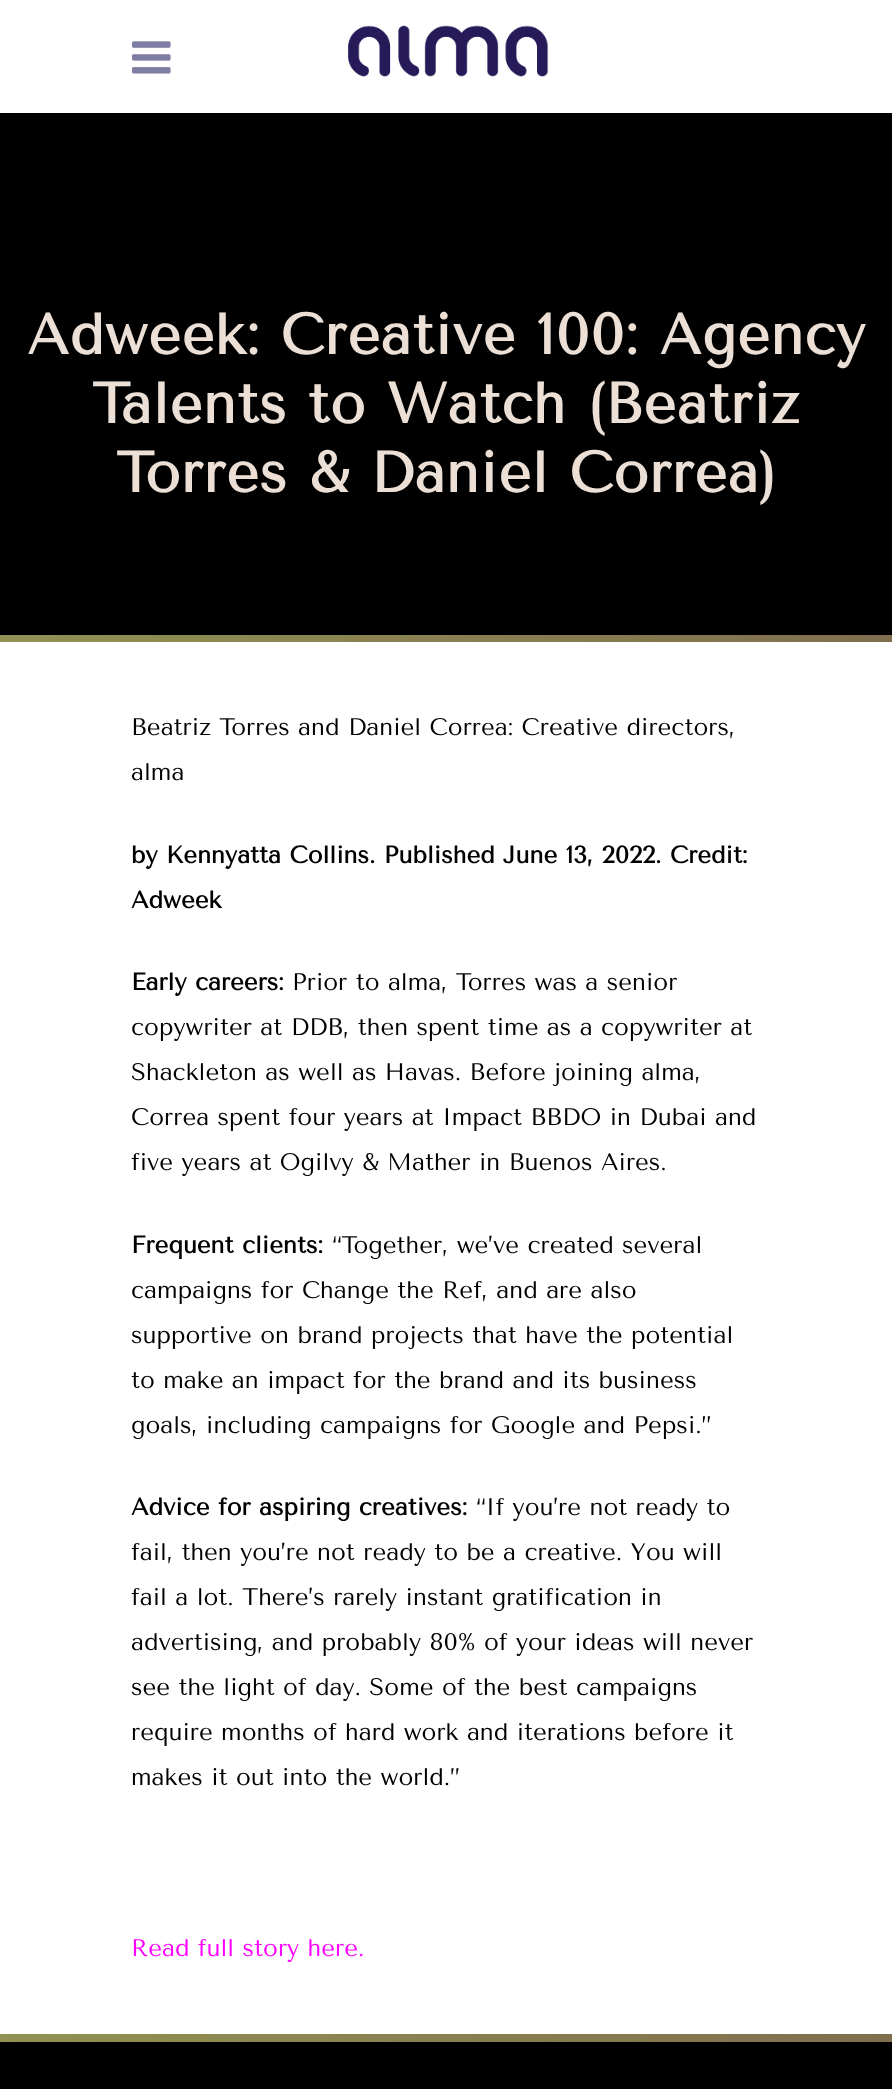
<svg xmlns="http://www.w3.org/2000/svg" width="892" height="2089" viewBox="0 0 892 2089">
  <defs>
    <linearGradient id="g1" gradientUnits="userSpaceOnUse" x1="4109" y1="-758" x2="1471" y2="2072"><stop offset="0" stop-color="#c13de0"/><stop offset="0.5" stop-color="#5d2645"/><stop offset="1" stop-color="#929453"/></linearGradient>
    <linearGradient id="g2" gradientUnits="userSpaceOnUse" x1="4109" y1="642" x2="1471" y2="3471"><stop offset="0" stop-color="#c13de0"/><stop offset="0.5" stop-color="#5d2645"/><stop offset="1" stop-color="#929453"/></linearGradient>
  </defs>
  <rect width="100%" height="100%" fill="#fff"/>
  <image x="132" y="41" width="39" height="33" href="img/1.png"/>
  <image x="348" y="25" width="201" height="52" href="img/2.png"/>
  <path d="M0 113h892v522H0z" fill="#000"/>
  <path d="M0 635h892v7H0z" fill="url(#g1)"/>
  <path d="M0 2034h892v8H0z" fill="url(#g2)"/>
  <path d="M0 2042h892v47H0z" fill="#000"/>
  <g font-family="Tenor Sans" font-size="57" font-weight="bold" letter-spacing="0.75" fill="#ece0d6">
    <text x="27" y="354">Adweek: Creative 100: Agency</text>
    <text x="92" y="423">Talents to Watch (Beatriz</text>
    <text x="116" y="492">Torres &amp; Daniel Correa)</text>
  </g>
  <g font-family="Tenor Sans" font-size="24" fill="#000">
    <text x="131" y="735">Beatriz Torres and Daniel Correa: Creative directors,</text>
    <text x="131" y="780">alma</text>
  </g>
  <g font-family="Tenor Sans" font-size="24" font-weight="bold" fill="#000">
    <text x="131" y="863">by Kennyatta Collins. Published June 13, 2022. Credit:</text>
    <text x="131" y="908">Adweek</text>
    <text x="131" y="990">Early careers:</text>
  </g>
  <g font-family="Tenor Sans" font-size="24" fill="#000">
    <text x="292" y="990">Prior to alma, Torres was a senior</text>
    <text x="131" y="1035">copywriter at DDB, then spent time as a copywriter at</text>
    <text x="131" y="1080">Shackleton as well as Havas. Before joining alma,</text>
    <text x="131" y="1125">Correa spent four years at Impact BBDO in Dubai and</text>
    <text x="131" y="1170">five years at Ogilvy &amp; Mather in Buenos Aires.</text>
  </g>
  <text x="131" y="1253" font-family="Tenor Sans" font-size="24" font-weight="bold" fill="#000">Frequent clients:</text>
  <g font-family="Tenor Sans" font-size="24" fill="#000">
    <text x="332" y="1253">“Together, we’ve created several</text>
    <text x="131" y="1298">campaigns for Change the Ref, and are also</text>
    <text x="131" y="1343">supportive on brand projects that have the potential</text>
    <text x="131" y="1388">to make an impact for the brand and its business</text>
    <text x="131" y="1433">goals, including campaigns for Google and Pepsi.”</text>
  </g>
  <text x="131" y="1515" font-family="Tenor Sans" font-size="24" font-weight="bold" fill="#000">Advice for aspiring creatives:</text>
  <g font-family="Tenor Sans" font-size="24" fill="#000">
    <text x="476" y="1515">“If you’re not ready to</text>
    <text x="131" y="1560">fail, then you’re not ready to be a creative. You will</text>
    <text x="131" y="1605">fail a lot. There’s rarely instant gratification in</text>
    <text x="131" y="1650">advertising, and probably 80% of your ideas will never</text>
    <text x="131" y="1695">see the light of day. Some of the best campaigns</text>
    <text x="131" y="1740">require months of hard work and iterations before it</text>
    <text x="131" y="1785">makes it out into the world.”</text>
  </g>
  <text x="131" y="1956" font-family="Tenor Sans" font-size="24" fill="#f0f">Read full story here.</text>
</svg>
